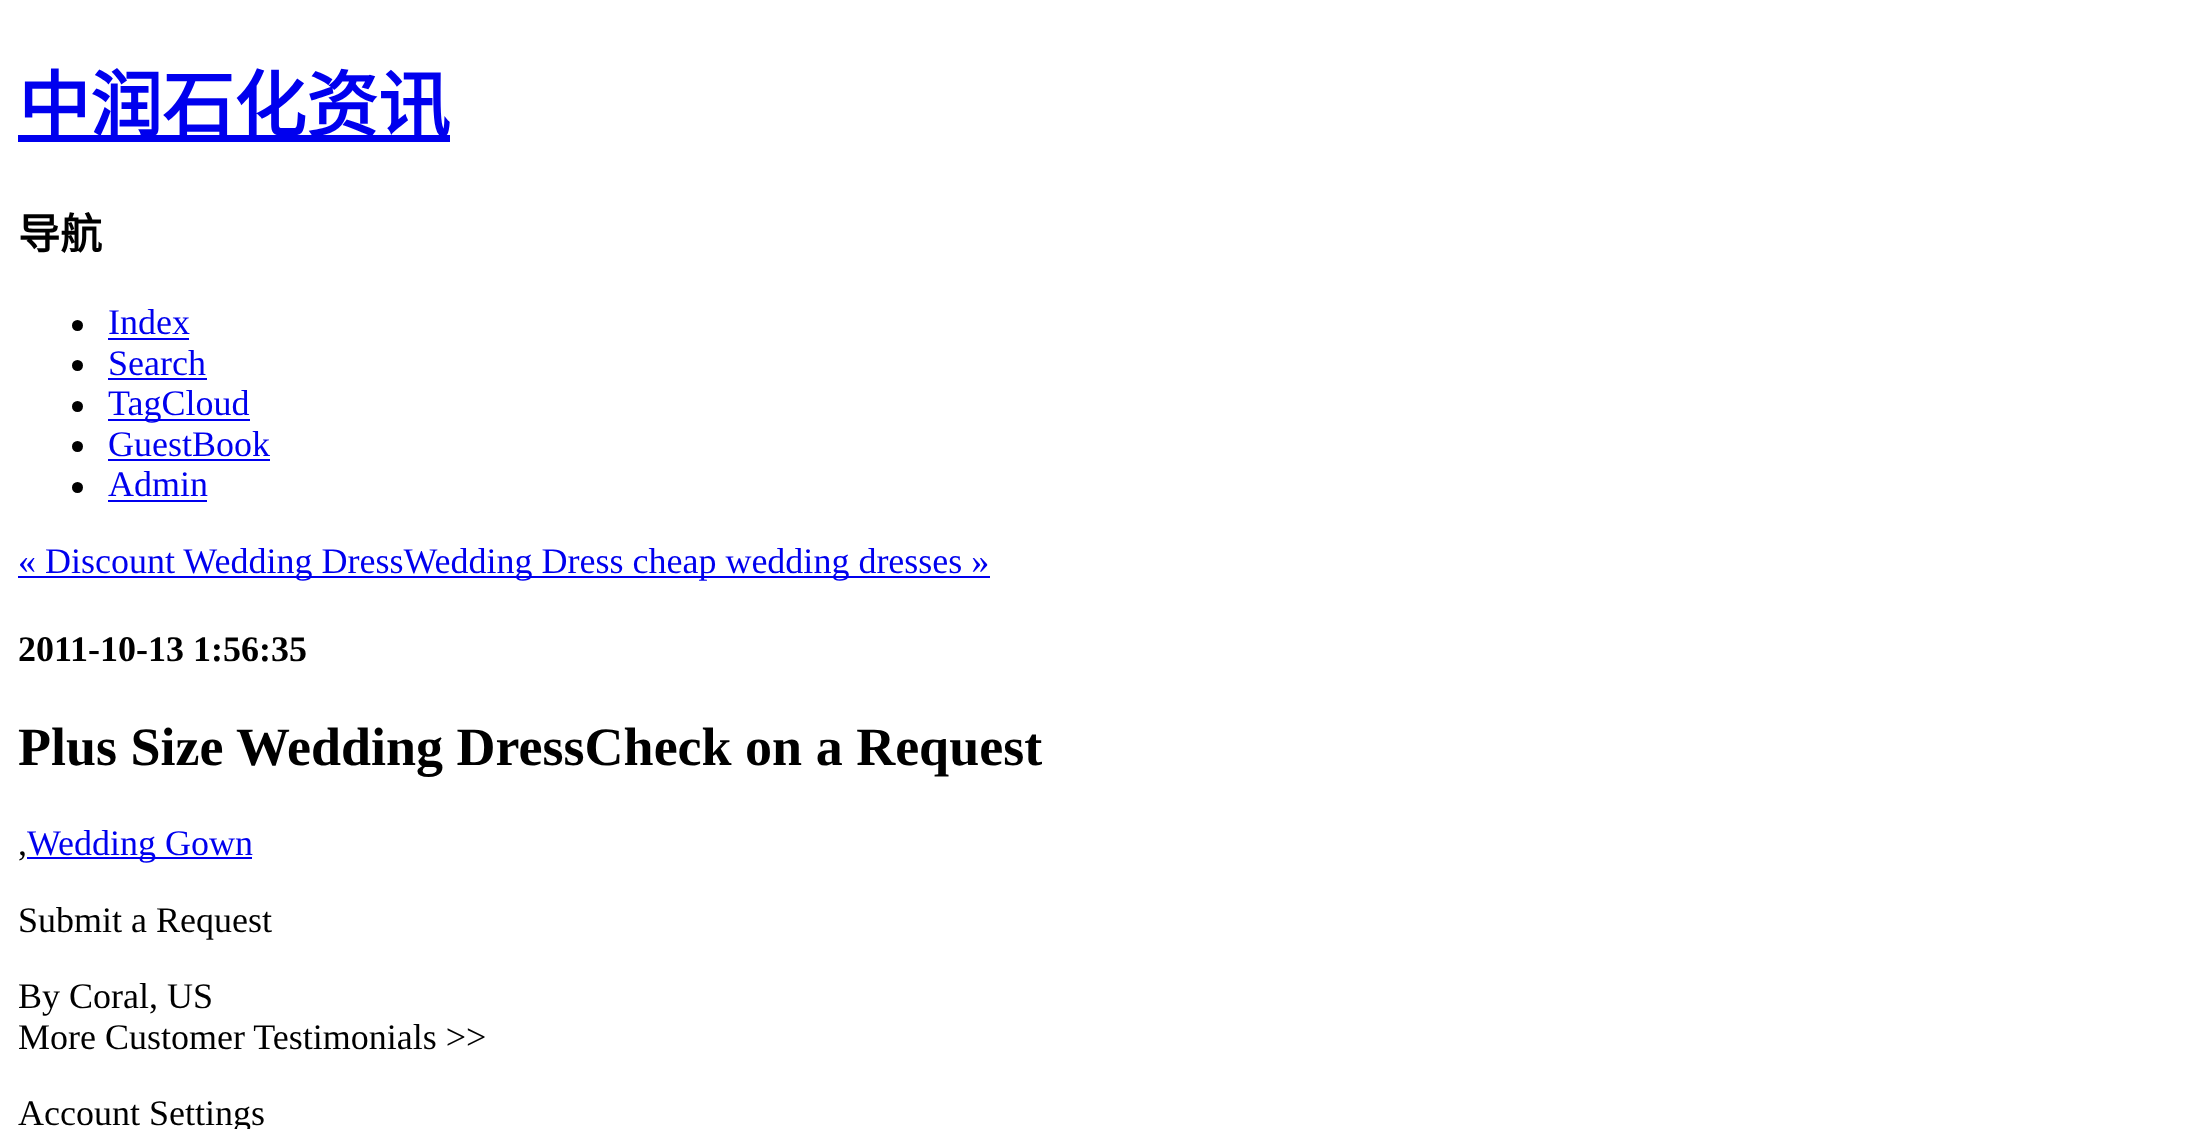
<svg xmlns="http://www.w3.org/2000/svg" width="2201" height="1129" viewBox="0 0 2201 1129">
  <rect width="100%" height="100%" fill="#fff"/>
  <path d="M18 135h432v7H18z" fill="#00e"/>
  <circle cx="77.5" cy="325.5" r="5.5" fill="#000"/>
  <path d="M108 338h81v2H108z" fill="#00e"/>
  <circle cx="77.5" cy="365.5" r="5.5" fill="#000"/>
  <path d="M108 378h99v2H108z" fill="#00e"/>
  <circle cx="77.5" cy="406.5" r="5.5" fill="#000"/>
  <path d="M108 419h142v2H108z" fill="#00e"/>
  <circle cx="77.5" cy="446.5" r="5.5" fill="#000"/>
  <path d="M108 459h162v2H108z" fill="#00e"/>
  <circle cx="77.5" cy="487.5" r="5.5" fill="#000"/>
  <path d="M108 500h99v2H108z" fill="#00e"/>
  <path d="M18 576h972v2H18z" fill="#00e"/>
  <path d="M27 857h225v2H27z" fill="#00e"/>
  <text x="18" y="131" font-family="Noto Sans CJK SC" font-size="72" font-weight="bold" fill="#00e">中润石化资讯</text>
  <text x="18" y="249" font-family="Noto Sans CJK SC" font-size="42" font-weight="bold" fill="#000">导航</text>
  <g font-family="Liberation Serif" font-size="36" fill="#00e">
    <text x="108" y="334">Index</text>
    <text x="108" y="375">Search</text>
    <text x="108" y="415">TagCloud</text>
    <text x="108" y="456">GuestBook</text>
    <text x="108" y="496">Admin</text>
    <text x="18" y="573">« Discount Wedding DressWedding Dress cheap wedding dresses »</text>
  </g>
  <text x="18" y="661" font-family="Liberation Serif" font-size="36" font-weight="bold" fill="#000">2011-10-13 1:56:35</text>
  <text x="18" y="765" font-family="Liberation Serif" font-size="54" font-weight="bold" fill="#000">Plus Size Wedding DressCheck on a Request</text>
  <text x="18" y="855" font-family="Liberation Serif" font-size="36" fill="#000">,</text>
  <text x="27" y="855" font-family="Liberation Serif" font-size="36" fill="#00e">Wedding Gown</text>
  <g font-family="Liberation Serif" font-size="36" fill="#000">
    <text x="18" y="932">Submit a Request</text>
    <text x="18" y="1008">By Coral, US</text>
    <text x="18" y="1049">More Customer Testimonials &gt;&gt;</text>
    <text x="18" y="1125">Account Settings</text>
  </g>
</svg>
